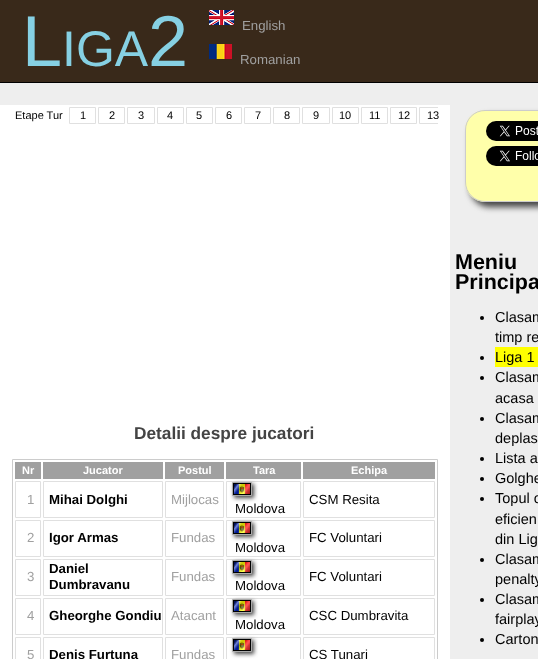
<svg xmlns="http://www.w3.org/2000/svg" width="538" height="659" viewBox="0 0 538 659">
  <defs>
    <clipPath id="clip1"><path d="M12 105h426v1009H12z"/></clipPath>
  </defs>
  <rect width="100%" height="100%" fill="#39291a"/>
  <path d="M0 82h538v1H0z" fill="#000"/>
  <image x="209" y="10" width="25" height="15" href="img/1.png"/>
  <image x="209" y="44" width="23" height="15" href="img/2.png"/>
  <path d="M0 83h538v22H0z" fill="#eee"/>
  <path d="M450 105h88v554H450z" fill="#eee"/>
  <path d="M0 105h450v554H0z" fill="#fff"/>
  <path d="M69.5 107.5h26v16H69.5z" fill="none" stroke="#e0e0e0"/>
  <path d="M98.5 107.5h26v16H98.5z" fill="none" stroke="#e0e0e0"/>
  <path d="M127.5 107.5h27v16H127.5z" fill="none" stroke="#e0e0e0"/>
  <path d="M157.5 107.5h26v16H157.5z" fill="none" stroke="#e0e0e0"/>
  <path d="M186.5 107.5h26v16H186.5z" fill="none" stroke="#e0e0e0"/>
  <path d="M215.5 107.5h26v16H215.5z" fill="none" stroke="#e0e0e0"/>
  <path d="M244.5 107.5h26v16H244.5z" fill="none" stroke="#e0e0e0"/>
  <path d="M273.5 107.5h26v16H273.5z" fill="none" stroke="#e0e0e0"/>
  <path d="M302.5 107.5h27v16H302.5z" fill="none" stroke="#e0e0e0"/>
  <path d="M332.5 107.5h26v16H332.5z" fill="none" stroke="#e0e0e0"/>
  <path d="M361.5 107.5h26v16H361.5z" fill="none" stroke="#e0e0e0"/>
  <path d="M390.5 107.5h26v16H390.5z" fill="none" stroke="#e0e0e0"/>
  <g clip-path="url(#clip1)">
    <path d="M419.5 107.5h26v16H419.5z" fill="none" stroke="#e0e0e0"/>
  </g>
  <path d="M12.5 459.5h425v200H12.5z" fill="none" stroke="#ccc"/>
  <path d="M15 462h26v17H15z" fill="#a0a0a0"/>
  <path d="M43 462h120v17H43z" fill="#a0a0a0"/>
  <path d="M165 462h59v17H165z" fill="#a0a0a0"/>
  <path d="M226 462h75v17H226z" fill="#a0a0a0"/>
  <path d="M303 462h132v17H303z" fill="#a0a0a0"/>
  <path d="M15.5 481.5h25v36H15.5z" fill="none" stroke="#e0e0e0"/>
  <path d="M43.5 481.5h119v36H43.5z" fill="none" stroke="#e0e0e0"/>
  <path d="M165.5 481.5h58v36H165.5z" fill="none" stroke="#e0e0e0"/>
  <path d="M303.5 481.5h131v36H303.5z" fill="none" stroke="#e0e0e0"/>
  <path d="M226.5 481.5h74v36H226.5z" fill="none" stroke="#e0e0e0"/>
  <path d="M234 484h20v14H234z" fill="#444" filter="blur(2px)"/>
  <path d="M232.5 482.5h19v13H232.5z" fill="none" stroke="#aaa"/>
  <image x="233" y="483" width="18" height="12" href="img/3.png"/>
  <path d="M15.5 520.5h25v36H15.5z" fill="none" stroke="#e0e0e0"/>
  <path d="M43.5 520.5h119v36H43.5z" fill="none" stroke="#e0e0e0"/>
  <path d="M165.5 520.5h58v36H165.5z" fill="none" stroke="#e0e0e0"/>
  <path d="M303.5 520.5h131v36H303.5z" fill="none" stroke="#e0e0e0"/>
  <path d="M226.5 520.5h74v36H226.5z" fill="none" stroke="#e0e0e0"/>
  <path d="M234 523h20v14H234z" fill="#444" filter="blur(2px)"/>
  <path d="M232.5 521.5h19v13H232.5z" fill="none" stroke="#aaa"/>
  <image x="233" y="522" width="18" height="12" href="img/3.png"/>
  <path d="M15.5 559.5h25v36H15.5z" fill="none" stroke="#e0e0e0"/>
  <path d="M43.5 559.5h119v36H43.5z" fill="none" stroke="#e0e0e0"/>
  <path d="M165.5 559.5h58v36H165.5z" fill="none" stroke="#e0e0e0"/>
  <path d="M303.5 559.5h131v36H303.5z" fill="none" stroke="#e0e0e0"/>
  <path d="M226.5 559.5h74v36H226.5z" fill="none" stroke="#e0e0e0"/>
  <path d="M234 562h20v14H234z" fill="#444" filter="blur(2px)"/>
  <path d="M232.5 560.5h19v13H232.5z" fill="none" stroke="#aaa"/>
  <image x="233" y="561" width="18" height="12" href="img/3.png"/>
  <path d="M15.5 598.5h25v36H15.5z" fill="none" stroke="#e0e0e0"/>
  <path d="M43.5 598.5h119v36H43.5z" fill="none" stroke="#e0e0e0"/>
  <path d="M165.5 598.5h58v36H165.5z" fill="none" stroke="#e0e0e0"/>
  <path d="M303.5 598.5h131v36H303.5z" fill="none" stroke="#e0e0e0"/>
  <path d="M226.5 598.5h74v36H226.5z" fill="none" stroke="#e0e0e0"/>
  <path d="M234 601h20v14H234z" fill="#444" filter="blur(2px)"/>
  <path d="M232.5 599.5h19v13H232.5z" fill="none" stroke="#aaa"/>
  <image x="233" y="600" width="18" height="12" href="img/3.png"/>
  <path d="M15.5 637.5h25v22H15.5z" fill="none" stroke="#e0e0e0"/>
  <path d="M43.5 637.5h119v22H43.5z" fill="none" stroke="#e0e0e0"/>
  <path d="M165.5 637.5h58v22H165.5z" fill="none" stroke="#e0e0e0"/>
  <path d="M226.5 637.5h74v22H226.5z" fill="none" stroke="#e0e0e0"/>
  <path d="M234 640h20v14H234z" fill="#444" filter="blur(2px)"/>
  <path d="M232.5 638.5h19v13H232.5z" fill="none" stroke="#aaa"/>
  <image x="233" y="639" width="18" height="12" href="img/3.png"/>
  <path d="M303.5 637.5h131v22H303.5z" fill="none" stroke="#e0e0e0"/>
  <rect x="470" y="115" width="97" height="92" rx="20" fill="#444" filter="blur(3px)"/>
  <path d="M485 110H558V202H485C474 202 465 193 465 182V130C465 119 474 110 485 110Z" fill="#ffa"/>
  <rect x="465.5" y="110.5" width="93" height="91" rx="19.5" fill="none" stroke="#ccc"/>
  <image x="486" y="121" width="52" height="20" href="img/4.png"/>
  <image x="486" y="146" width="52" height="20" href="img/5.png"/>
  <circle cx="482" cy="318" r="2" fill="#000"/>
  <path d="M495 347h43v20H495z" fill="#ff0"/>
  <circle cx="482" cy="358" r="2" fill="#000"/>
  <circle cx="482" cy="378" r="2" fill="#000"/>
  <circle cx="482" cy="419" r="2" fill="#000"/>
  <circle cx="482" cy="459" r="2" fill="#000"/>
  <circle cx="482" cy="479" r="2" fill="#000"/>
  <circle cx="482" cy="499" r="2" fill="#000"/>
  <circle cx="482" cy="560" r="2" fill="#000"/>
  <circle cx="482" cy="600" r="2" fill="#000"/>
  <circle cx="482" cy="640" r="2" fill="#000"/>
  <text x="22" y="66" font-family="Liberation Sans" font-size="72" fill="#86d0e3">L</text>
  <text x="62" y="66" font-family="Liberation Sans" font-size="50" fill="#86d0e3">IGA</text>
  <text x="148" y="66" font-family="Liberation Sans" font-size="72" fill="#86d0e3">2</text>
  <g font-family="Liberation Sans" font-size="13.25" fill="#a0a0a0">
    <text x="242" y="30">English</text>
    <text x="240" y="64">Romanian</text>
  </g>
  <g font-family="Liberation Sans" font-size="11" fill="#000">
    <text x="15" y="119">Etape Tur</text>
    <text x="80" y="119">1</text>
    <text x="109" y="119">2</text>
    <text x="138" y="119">3</text>
    <text x="167" y="119">4</text>
    <text x="196" y="119">5</text>
    <text x="226" y="119">6</text>
    <text x="255" y="119">7</text>
    <text x="284" y="119">8</text>
    <text x="313" y="119">9</text>
    <text x="339" y="119">10</text>
    <text x="369" y="119">11</text>
    <text x="398" y="119">12</text>
    <text x="427" y="119">13</text>
  </g>
  <text x="134" y="439" font-family="Liberation Sans" font-size="17.25" font-weight="bold" fill="#444">Detalii despre jucatori</text>
  <g font-family="Liberation Sans" font-size="11" font-weight="bold" fill="#fff">
    <text x="22" y="474">Nr</text>
    <text x="83" y="474">Jucator</text>
    <text x="178" y="474">Postul</text>
    <text x="253" y="474">Tara</text>
    <text x="351" y="474">Echipa</text>
  </g>
  <text x="27" y="504" font-family="Liberation Sans" font-size="13.25" fill="#a0a0a0">1</text>
  <text x="49" y="504" font-family="Liberation Sans" font-size="13.25" font-weight="bold" fill="#000">Mihai Dolghi</text>
  <text x="171" y="504" font-family="Liberation Sans" font-size="13.25" fill="#a0a0a0">Mijlocas</text>
  <g font-family="Liberation Sans" font-size="13.25" fill="#000">
    <text x="309" y="504">CSM Resita</text>
    <text x="235" y="513">Moldova</text>
  </g>
  <text x="27" y="542" font-family="Liberation Sans" font-size="13.25" fill="#a0a0a0">2</text>
  <text x="49" y="542" font-family="Liberation Sans" font-size="13.25" font-weight="bold" fill="#000">Igor Armas</text>
  <text x="171" y="542" font-family="Liberation Sans" font-size="13.25" fill="#a0a0a0">Fundas</text>
  <g font-family="Liberation Sans" font-size="13.25" fill="#000">
    <text x="309" y="542">FC Voluntari</text>
    <text x="235" y="552">Moldova</text>
  </g>
  <text x="27" y="581" font-family="Liberation Sans" font-size="13.25" fill="#a0a0a0">3</text>
  <g font-family="Liberation Sans" font-size="13.25" font-weight="bold" fill="#000">
    <text x="49" y="573">Daniel</text>
    <text x="49" y="589">Dumbravanu</text>
  </g>
  <text x="171" y="581" font-family="Liberation Sans" font-size="13.25" fill="#a0a0a0">Fundas</text>
  <g font-family="Liberation Sans" font-size="13.25" fill="#000">
    <text x="309" y="581">FC Voluntari</text>
    <text x="235" y="590">Moldova</text>
  </g>
  <text x="27" y="620" font-family="Liberation Sans" font-size="13.25" fill="#a0a0a0">4</text>
  <text x="49" y="620" font-family="Liberation Sans" font-size="13.25" font-weight="bold" fill="#000">Gheorghe Gondiu</text>
  <text x="171" y="620" font-family="Liberation Sans" font-size="13.25" fill="#a0a0a0">Atacant</text>
  <g font-family="Liberation Sans" font-size="13.25" fill="#000">
    <text x="309" y="620">CSC Dumbravita</text>
    <text x="235" y="629">Moldova</text>
  </g>
  <text x="27" y="659" font-family="Liberation Sans" font-size="13.25" fill="#a0a0a0">5</text>
  <text x="49" y="659" font-family="Liberation Sans" font-size="13.25" font-weight="bold" fill="#000">Denis Furtuna</text>
  <text x="171" y="659" font-family="Liberation Sans" font-size="13.25" fill="#a0a0a0">Fundas</text>
  <text x="309" y="659" font-family="Liberation Sans" font-size="13.25" fill="#000">CS Tunari</text>
  <g font-family="Liberation Sans" font-size="21.5" font-weight="bold" fill="#000">
    <text x="455" y="269">Meniu</text>
    <text x="455" y="289">Principa</text>
  </g>
  <g font-family="Liberation Sans" font-size="14.5" fill="#000">
    <text x="495" y="322">Clasam</text>
    <text x="495" y="342">timp re</text>
    <text x="495" y="362">Liga 1</text>
    <text x="495" y="382">Clasam</text>
    <text x="495" y="403">acasa</text>
    <text x="495" y="423">Clasam</text>
    <text x="495" y="443">deplas</text>
    <text x="495" y="463">Lista a</text>
    <text x="495" y="483">Golghe</text>
    <text x="495" y="503">Topul c</text>
    <text x="495" y="524">eficien</text>
    <text x="495" y="544">din Lig</text>
    <text x="495" y="564">Clasam</text>
    <text x="495" y="584">penalty</text>
    <text x="495" y="604">Clasam</text>
    <text x="495" y="624">fairplay</text>
    <text x="495" y="644">Carton</text>
  </g>
</svg>
